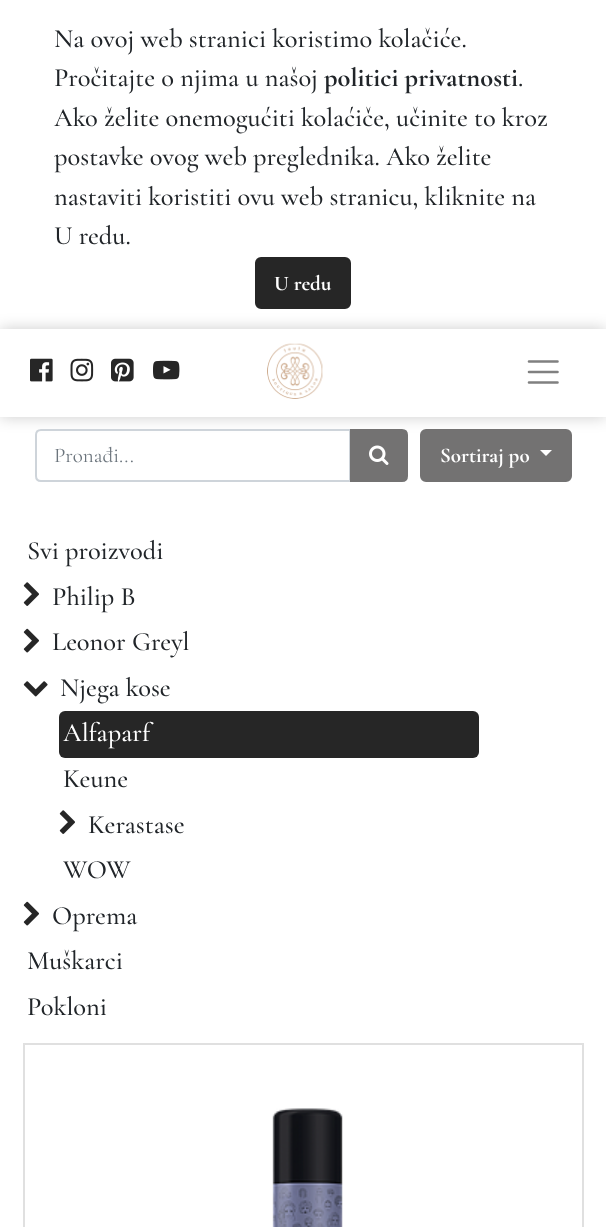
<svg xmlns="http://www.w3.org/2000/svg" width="606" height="1227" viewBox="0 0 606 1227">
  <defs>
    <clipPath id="clip1"><path d="M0 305H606V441H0ZM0 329H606V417H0Z" clip-rule="evenodd"/></clipPath>
  </defs>
  <rect width="100%" height="100%" fill="#fff"/>
  <g clip-path="url(#clip1)">
    <path d="M0 329h606v88H0z" fill="#00000033" filter="blur(7.5px)"/>
  </g>
  <rect x="256" y="258" width="94" height="50" rx="5" fill="#262626" stroke="#262626" stroke-width="2"/>
  <image x="30" y="358" width="23" height="24" href="img/1.png"/>
  <image x="70" y="358" width="24" height="24" href="img/2.png"/>
  <image x="111" y="358" width="23" height="24" href="img/3.png"/>
  <image x="153" y="360" width="27" height="20" href="img/4.png"/>
  <image x="267" y="343" width="56" height="56" href="img/5.png"/>
  <path d="M529 361.5H557.5M529 372H557.5M529 382.5H557.5" fill="none" stroke="#808080" stroke-width="2.6" stroke-linecap="round"/>
  <path d="M41 430H350V481H41C38 481 36 479 36 476V435C36 432 38 430 41 430Z" fill="none" stroke="#ced4da" stroke-width="2"/>
  <path d="M351 430H402C405 430 407 432 407 435V476C407 479 405 481 402 481H351Z" fill="#737272" stroke="#737272" stroke-width="2"/>
  <image x="369" y="445" width="20" height="20" href="img/6.png"/>
  <rect x="421" y="430" width="150" height="51" rx="5" fill="#737272" stroke="#737272" stroke-width="2"/>
  <path d="M540 450H552L546 456Z" fill="#fff"/>
  <image x="23" y="582" width="16" height="24" href="img/7.png"/>
  <image x="23" y="628" width="16" height="25" href="img/8.png"/>
  <image x="23" y="681" width="25" height="16" href="img/9.png"/>
  <rect x="59" y="711" width="420" height="47" rx="6" fill="#262626"/>
  <image x="59" y="810" width="16" height="24" href="img/7.png"/>
  <image x="23" y="901" width="16" height="25" href="img/8.png"/>
  <path d="M24 1044h559v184H24z" fill="none" stroke="#e0e0e0" stroke-width="2"/>
  <image x="272" y="1108" width="71" height="119" href="img/10.png"/>
  <g font-family="Cormorant Garamond" font-size="26.4" font-weight="500" fill="#212529">
    <text x="54" y="47">Na ovoj web stranici koristimo kolačiće.</text>
    <text x="54" y="86">Pročitajte o njima u našoj</text>
  </g>
  <text x="324" y="86" font-family="Cormorant Garamond" font-size="26.4" font-weight="bold" fill="#212529">politici privatnosti</text>
  <g font-family="Cormorant Garamond" font-size="26.4" font-weight="500" fill="#212529">
    <text x="518" y="86">.</text>
    <text x="54" y="126">Ako želite onemogućiti kolaćiče, učinite to kroz</text>
    <text x="54" y="165">postavke ovog web preglednika. Ako želite</text>
    <text x="54" y="205">nastaviti koristiti ovu web stranicu, kliknite na</text>
    <text x="54" y="244">U redu.</text>
  </g>
  <text x="274" y="290" font-family="Cormorant Garamond" font-size="21" font-weight="bold" fill="#fff">U redu</text>
  <text x="54" y="462" font-family="Cormorant Garamond" font-size="21" fill="#6c757d">Pronađi...</text>
  <text x="440" y="462" font-family="Cormorant Garamond" font-size="21" font-weight="bold" fill="#fff">Sortiraj po</text>
  <g font-family="Cormorant Garamond" font-size="26.4" font-weight="500" fill="#212529">
    <text x="27" y="559">Svi proizvodi</text>
    <text x="52" y="605">Philip B</text>
    <text x="52" y="650">Leonor Greyl</text>
    <text x="60" y="696">Njega kose</text>
  </g>
  <text x="63" y="741" font-family="Cormorant Garamond" font-size="26.4" font-weight="500" fill="#fff">Alfaparf</text>
  <g font-family="Cormorant Garamond" font-size="26.4" font-weight="500" fill="#212529">
    <text x="63" y="787">Keune</text>
    <text x="88" y="833">Kerastase</text>
    <text x="63" y="878">WOW</text>
    <text x="52" y="924">Oprema</text>
    <text x="27" y="969">Muškarci</text>
    <text x="27" y="1015">Pokloni</text>
  </g>
</svg>
